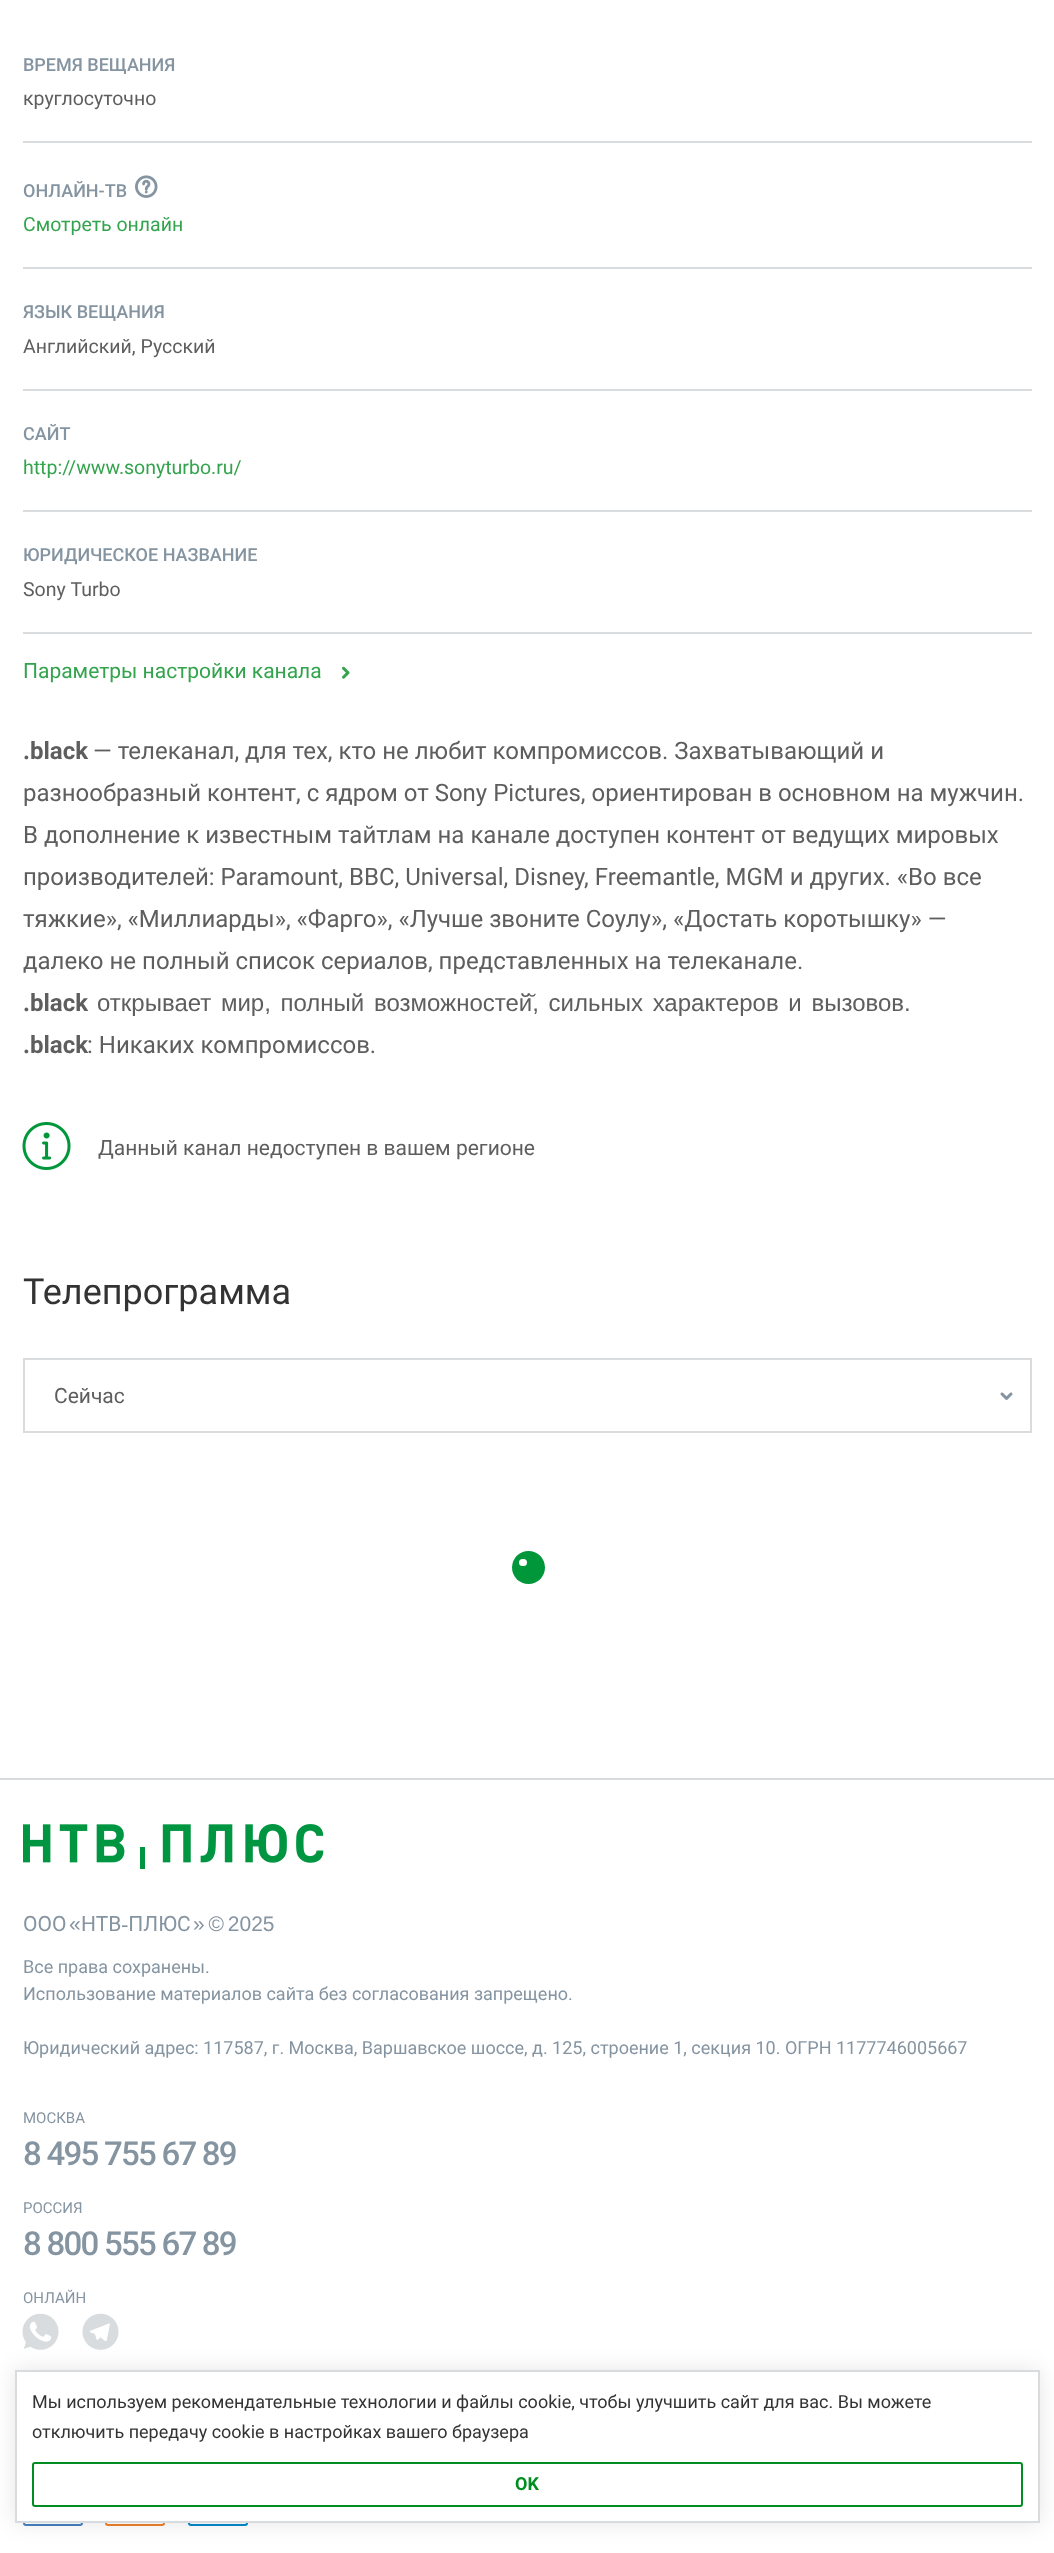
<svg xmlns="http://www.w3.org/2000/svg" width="1054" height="2553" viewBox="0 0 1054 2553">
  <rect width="100%" height="100%" fill="#fff"/>
  <path d="M23 141h1009v2H23z" fill="#d8dcde"/>
  <path d="M23 267h1009v2H23z" fill="#d8dcde"/>
  <image x="135" y="175" width="23" height="23" href="img/1.png"/>
  <path d="M23 389h1009v2H23z" fill="#d8dcde"/>
  <path d="M23 510h1009v2H23z" fill="#d8dcde"/>
  <path d="M23 632h1009v2H23z" fill="#d8dcde"/>
  <image x="342" y="666" width="8" height="13" href="img/2.png"/>
  <image x="22" y="1122" width="49" height="48" href="img/3.png"/>
  <path d="M24 1359h1007v73H24z" fill="none" stroke="#d8dcde" stroke-width="2"/>
  <image x="1000" y="1392" width="13" height="8" href="img/4.png"/>
  <circle cx="528.5" cy="1567.5" r="16.5" fill="#00973a"/>
  <rect x="519" y="1559" width="8" height="7" rx="3.5" fill="#fff"/>
  <path d="M0 1778h1054v2H0z" fill="#d8dcde"/>
  <image x="23" y="1824" width="301" height="45" href="img/5.png"/>
  <image x="22" y="2313" width="37" height="37" href="img/6.png"/>
  <image x="82" y="2313" width="37" height="37" href="img/7.png"/>
  <rect x="24" y="2467" width="58" height="58" rx="2" fill="none" stroke="#4680c2" stroke-width="2"/>
  <rect x="106" y="2467" width="58" height="58" rx="2" fill="none" stroke="#ed812b" stroke-width="2"/>
  <rect x="189" y="2467" width="58" height="58" rx="2" fill="none" stroke="#08c" stroke-width="2"/>
  <path d="M15 2370h1025v153H15z" fill="#0000001a" filter="blur(11px)"/>
  <path d="M16 2371h1023v151H16z" fill="#fff" stroke="#d8dcde" stroke-width="2"/>
  <rect x="33" y="2463" width="989" height="43" rx="2" fill="none" stroke="#008d21" stroke-width="2"/>
  <text x="23" y="71" font-family="Roboto" font-size="18" font-weight="500" fill="#8594a1">ВРЕМЯ ВЕЩАНИЯ</text>
  <text x="23" y="105" font-family="Roboto" font-size="19.5" fill="#5e5e5e">круглосуточно</text>
  <text x="23" y="197" font-family="Roboto" font-size="18" font-weight="500" fill="#8594a1">ОНЛАЙН-ТВ</text>
  <text x="23" y="231" font-family="Roboto" font-size="19.5" fill="#33a44d">Смотреть онлайн</text>
  <text x="23" y="318" font-family="Roboto" font-size="18" font-weight="500" fill="#8594a1">ЯЗЫК ВЕЩАНИЯ</text>
  <text x="23" y="353" font-family="Roboto" font-size="19.5" fill="#5e5e5e">Английский, Русский</text>
  <text x="23" y="440" font-family="Roboto" font-size="18" font-weight="500" fill="#8594a1">САЙТ</text>
  <text x="23" y="474" font-family="Roboto" font-size="19.5" fill="#33a44d">http://www.sonyturbo.ru/</text>
  <text x="23" y="561" font-family="Roboto" font-size="18" font-weight="500" fill="#8594a1">ЮРИДИЧЕСКОЕ НАЗВАНИЕ</text>
  <text x="23" y="596" font-family="Roboto" font-size="19.5" fill="#5e5e5e">Sony Turbo</text>
  <text x="23" y="678" font-family="Roboto" font-size="21" fill="#33a44d">Параметры настройки канала</text>
  <text x="23" y="759" font-family="Roboto" font-size="24" font-weight="bold" fill="#5e5e5e">.black</text>
  <g font-family="Roboto" font-size="24" fill="#5e5e5e">
    <text x="93" y="759">— телеканал, для тех, кто не любит компромиссов. Захватывающий и</text>
    <text x="23" y="801">разнообразный контент, с ядром от Sony Pictures, ориентирован в основном на мужчин.</text>
    <text x="23" y="843">В дополнение к известным тайтлам на канале доступен контент от ведущих мировых</text>
    <text x="23" y="885">производителей: Paramount, BBC, Universal, Disney, Freemantle, MGM и других. «Во все</text>
    <text x="23" y="927">тяжкие», «Миллиарды», «Фарго», «Лучше звоните Соулу», «Достать коротышку» —</text>
    <text x="23" y="969">далеко не полный список сериалов, представленных на телеканале.</text>
  </g>
  <text x="23" y="1011" font-family="Roboto" font-size="24" font-weight="bold" fill="#5e5e5e">.black</text>
  <text x="97" y="1011" word-spacing="3" font-family="Liberation Sans" font-size="24" fill="#5e5e5e">открывает мир, полный возможностей̆, сильных характеров и вызовов.</text>
  <text x="23" y="1053" font-family="Roboto" font-size="24" font-weight="bold" fill="#5e5e5e">.black</text>
  <text x="87" y="1053" font-family="Roboto" font-size="24" fill="#5e5e5e">: Никаких компромиссов.</text>
  <text x="98" y="1155" font-family="Roboto" font-size="21" fill="#5e5e5e">Данный канал недоступен в вашем регионе</text>
  <text x="23" y="1304" font-family="Roboto" font-size="36" fill="#333">Телепрограмма</text>
  <text x="54" y="1403" font-family="Roboto" font-size="21" fill="#5e5e5e">Сейчас</text>
  <text x="23" y="1931" font-family="Roboto" font-size="21" fill="#8594a1">ООО</text>
  <text x="69" y="1931" font-family="Liberation Sans" font-size="21" fill="#8594a1">«</text>
  <text x="81" y="1931" font-family="Roboto" font-size="21" fill="#8594a1">НТВ‑ПЛЮС</text>
  <text x="193" y="1931" word-spacing="-2" font-family="Liberation Sans" font-size="21" fill="#8594a1">» © 2025</text>
  <g font-family="Roboto" font-size="18" fill="#8594a1">
    <text x="23" y="1973">Все права сохранены.</text>
    <text x="23" y="2000">Использование материалов сайта без согласования запрещено.</text>
    <text x="23" y="2054">Юридический адрес: 117587, г. Москва, Варшавское шоссе, д. 125, строение 1, секция 10. ОГРН 1177746005667</text>
  </g>
  <text x="23" y="2123" font-family="Roboto" font-size="15" fill="#8594a1">МОСКВА</text>
  <text x="23" y="2165" font-family="Roboto" font-size="33" font-weight="500" letter-spacing="-1.75" fill="#8594a1">8 495 755 67 89</text>
  <text x="23" y="2213" font-family="Roboto" font-size="15" fill="#8594a1">РОССИЯ</text>
  <text x="23" y="2255" font-family="Roboto" font-size="33" font-weight="500" letter-spacing="-1.75" fill="#8594a1">8 800 555 67 89</text>
  <text x="23" y="2303" font-family="Roboto" font-size="15" fill="#8594a1">ОНЛАЙН</text>
  <g font-family="Roboto" font-size="18" fill="#333">
    <text x="32" y="2408">Мы используем рекомендательные технологии и файлы cookie, чтобы улучшить сайт для вас. Вы можете</text>
    <text x="32" y="2438">отключить передачу cookie в настройках вашего браузера</text>
  </g>
  <text x="515" y="2490" font-family="Roboto" font-size="18" font-weight="bold" fill="#008d21">OK</text>
</svg>
